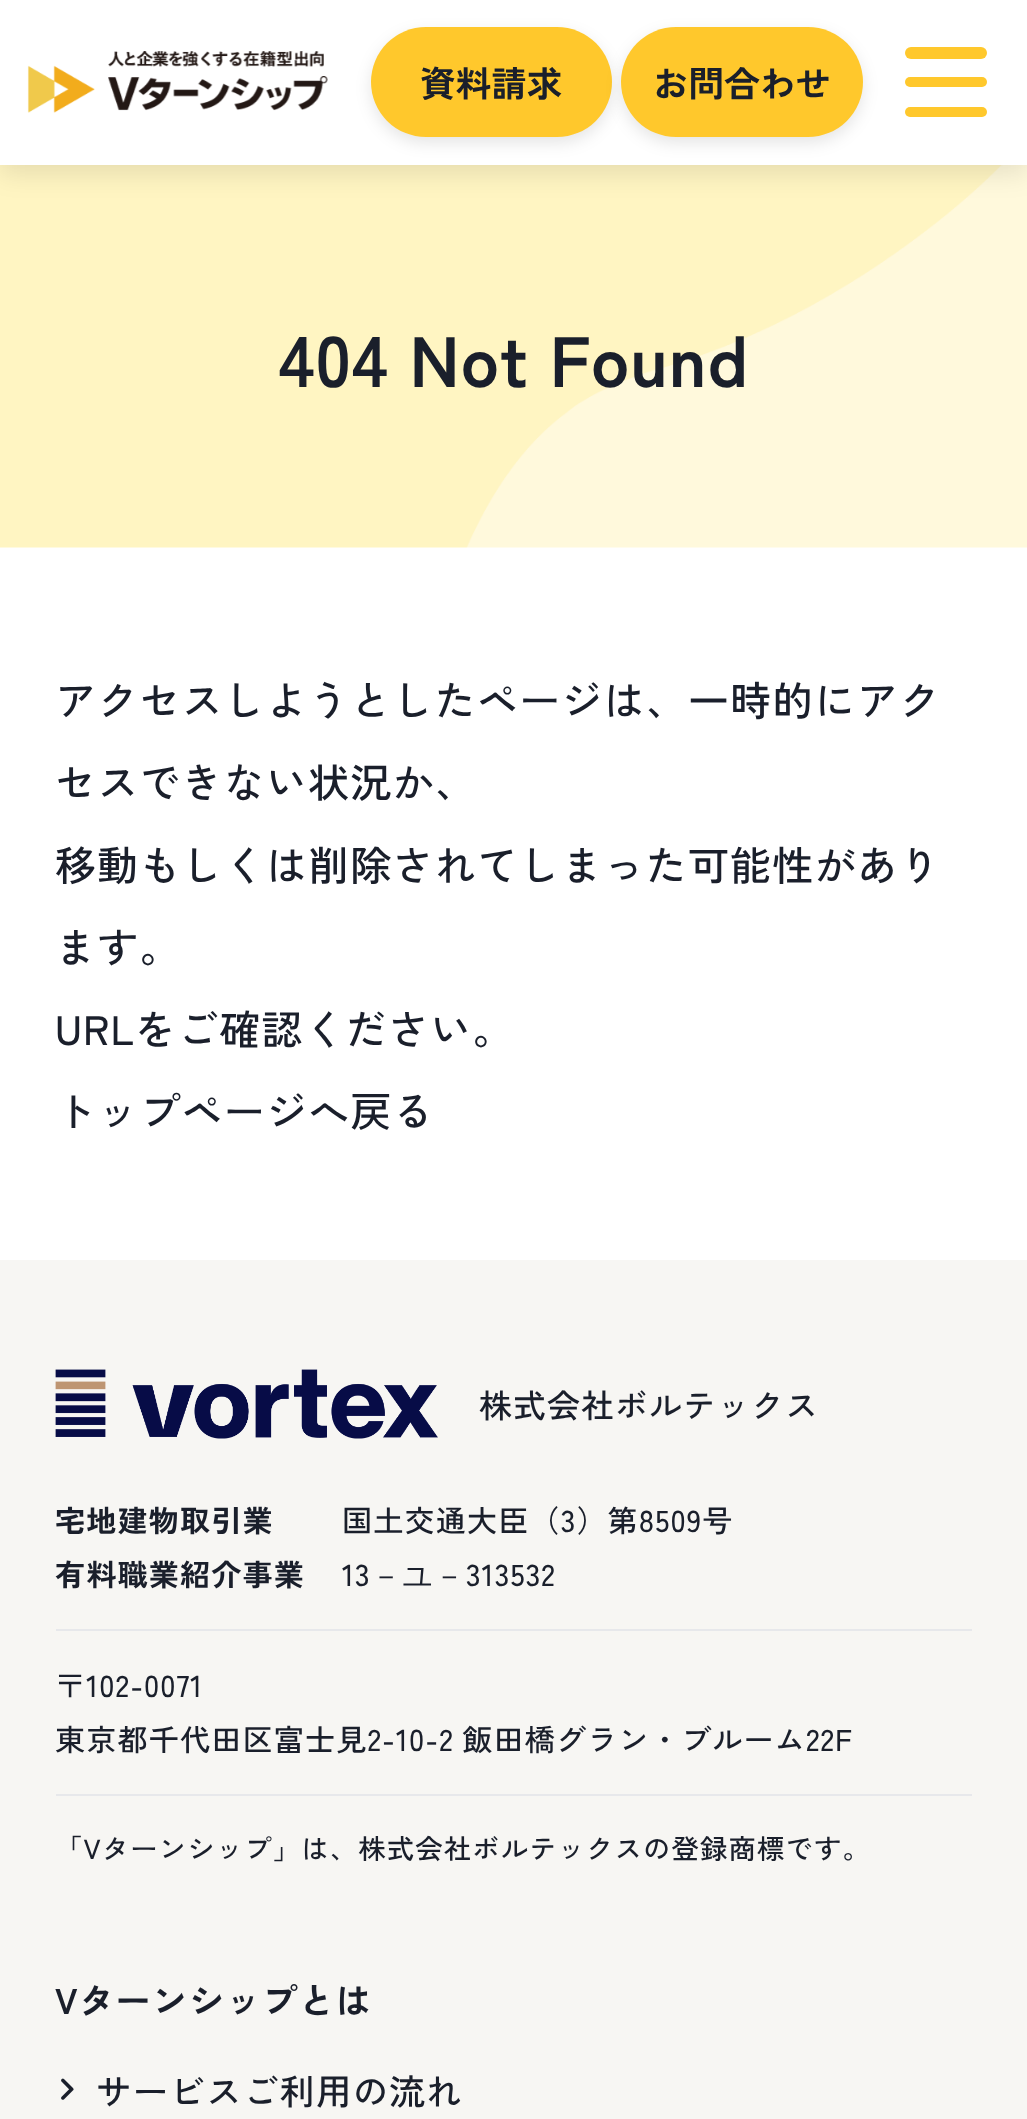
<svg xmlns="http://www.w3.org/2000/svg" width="1027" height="2119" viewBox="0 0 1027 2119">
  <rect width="100%" height="100%" fill="#fff"/>
  <image x="0" y="165" width="1027" height="383" href="img/2.png"/>
  <path d="M0 8h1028v165H0z" fill="#0000001a" filter="blur(13.5px)"/>
  <path d="M0 0h1027v165H0z" fill="#fff"/>
  <image x="27" y="51" width="301" height="62" href="img/1.png"/>
  <rect x="905" y="47" width="82" height="12" rx="6" fill="#ffc82c"/>
  <rect x="905" y="77" width="82" height="10" rx="5" fill="#ffc82c"/>
  <rect x="905" y="107" width="82" height="10" rx="5" fill="#ffc82c"/>
  <rect x="371" y="33" width="241" height="110" rx="55" fill="#0000001a" filter="blur(8px)"/>
  <rect x="371" y="27" width="241" height="110" rx="55" fill="#ffc82c"/>
  <rect x="621" y="33" width="242" height="110" rx="55" fill="#0000001a" filter="blur(8px)"/>
  <rect x="621" y="27" width="242" height="110" rx="55" fill="#ffc82c"/>
  <path d="M0 1260h1027v859H0z" fill="#f7f6f3"/>
  <image x="55" y="1369" width="383" height="70" href="img/3.png"/>
  <path d="M56 1629h916v2H56z" fill="#e7e8eb"/>
  <path d="M56 1794h916v2H56z" fill="#e7e8eb"/>
  <image x="61" y="2078" width="13" height="22" href="img/4.png"/>
  <g font-family="Zen Kaku Gothic New" font-size="35.6" font-weight="bold" fill="#1a1f2b">
    <text x="420" y="97">資料請求</text>
    <text x="653" y="97">お問合わせ</text>
  </g>
  <text x="279" y="387" font-family="Zen Kaku Gothic New" font-size="71.25" font-weight="bold" letter-spacing="1.1" fill="#1a1f2b">404 Not Found</text>
  <g font-family="Zen Kaku Gothic New" font-size="41.1" font-weight="500" letter-spacing="1.1" fill="#1a1f2b">
    <text x="55" y="716">アクセスしようとしたページは、一時的にアク</text>
    <text x="55" y="798">セスできない状況か、</text>
    <text x="55" y="881">移動もしくは削除されてしまった可能性があり</text>
    <text x="55" y="963">ます。</text>
    <text x="55" y="1045">URLをご確認ください。</text>
    <text x="55" y="1127">トップページへ戻る</text>
  </g>
  <text x="479" y="1418" font-family="Zen Kaku Gothic New" font-size="32.9" font-weight="500" letter-spacing="1.1" fill="#1a1f2b">株式会社ボルテックス</text>
  <text x="55" y="1532" font-family="Zen Kaku Gothic New" font-size="30.15" font-weight="bold" letter-spacing="1.1" fill="#1a1f2b">宅地建物取引業</text>
  <text x="342" y="1532" font-family="Zen Kaku Gothic New" font-size="30.15" font-weight="500" letter-spacing="1.1" fill="#1a1f2b">国土交通大臣（3）第8509号</text>
  <text x="55" y="1586" font-family="Zen Kaku Gothic New" font-size="30.15" font-weight="bold" letter-spacing="1.1" fill="#1a1f2b">有料職業紹介事業</text>
  <text x="342" y="1586" font-family="Zen Kaku Gothic New" font-size="30.15" font-weight="500" letter-spacing="1.1" fill="#1a1f2b">13</text>
  <text x="371" y="1586" font-family="WenQuanYi Zen Hei" font-size="30.15" font-weight="500" letter-spacing="1.1" fill="#1a1f2b">－ユ－</text>
  <g font-family="Zen Kaku Gothic New" font-size="30.15" font-weight="500" letter-spacing="1.1" fill="#1a1f2b">
    <text x="466" y="1586">313532</text>
    <text x="55" y="1697">〒102-0071</text>
    <text x="55" y="1751" word-spacing="-1">東京都千代田区富士見2-10-2 飯田橋グラン・ブルーム22F</text>
  </g>
  <text x="55" y="1859" font-family="Zen Kaku Gothic New" font-size="27.4" font-weight="500" letter-spacing="1.1" fill="#1a1f2b">「Vターンシップ」は、株式会社ボルテックスの登録商標です。</text>
  <text x="55" y="2014" font-family="Zen Kaku Gothic New" font-size="35.6" font-weight="bold" letter-spacing="1.1" fill="#1a1f2b">Vターンシップとは</text>
  <text x="96" y="2105" font-family="Zen Kaku Gothic New" font-size="35.6" font-weight="500" letter-spacing="1.1" fill="#1a1f2b">サービスご利用の流れ</text>
</svg>
